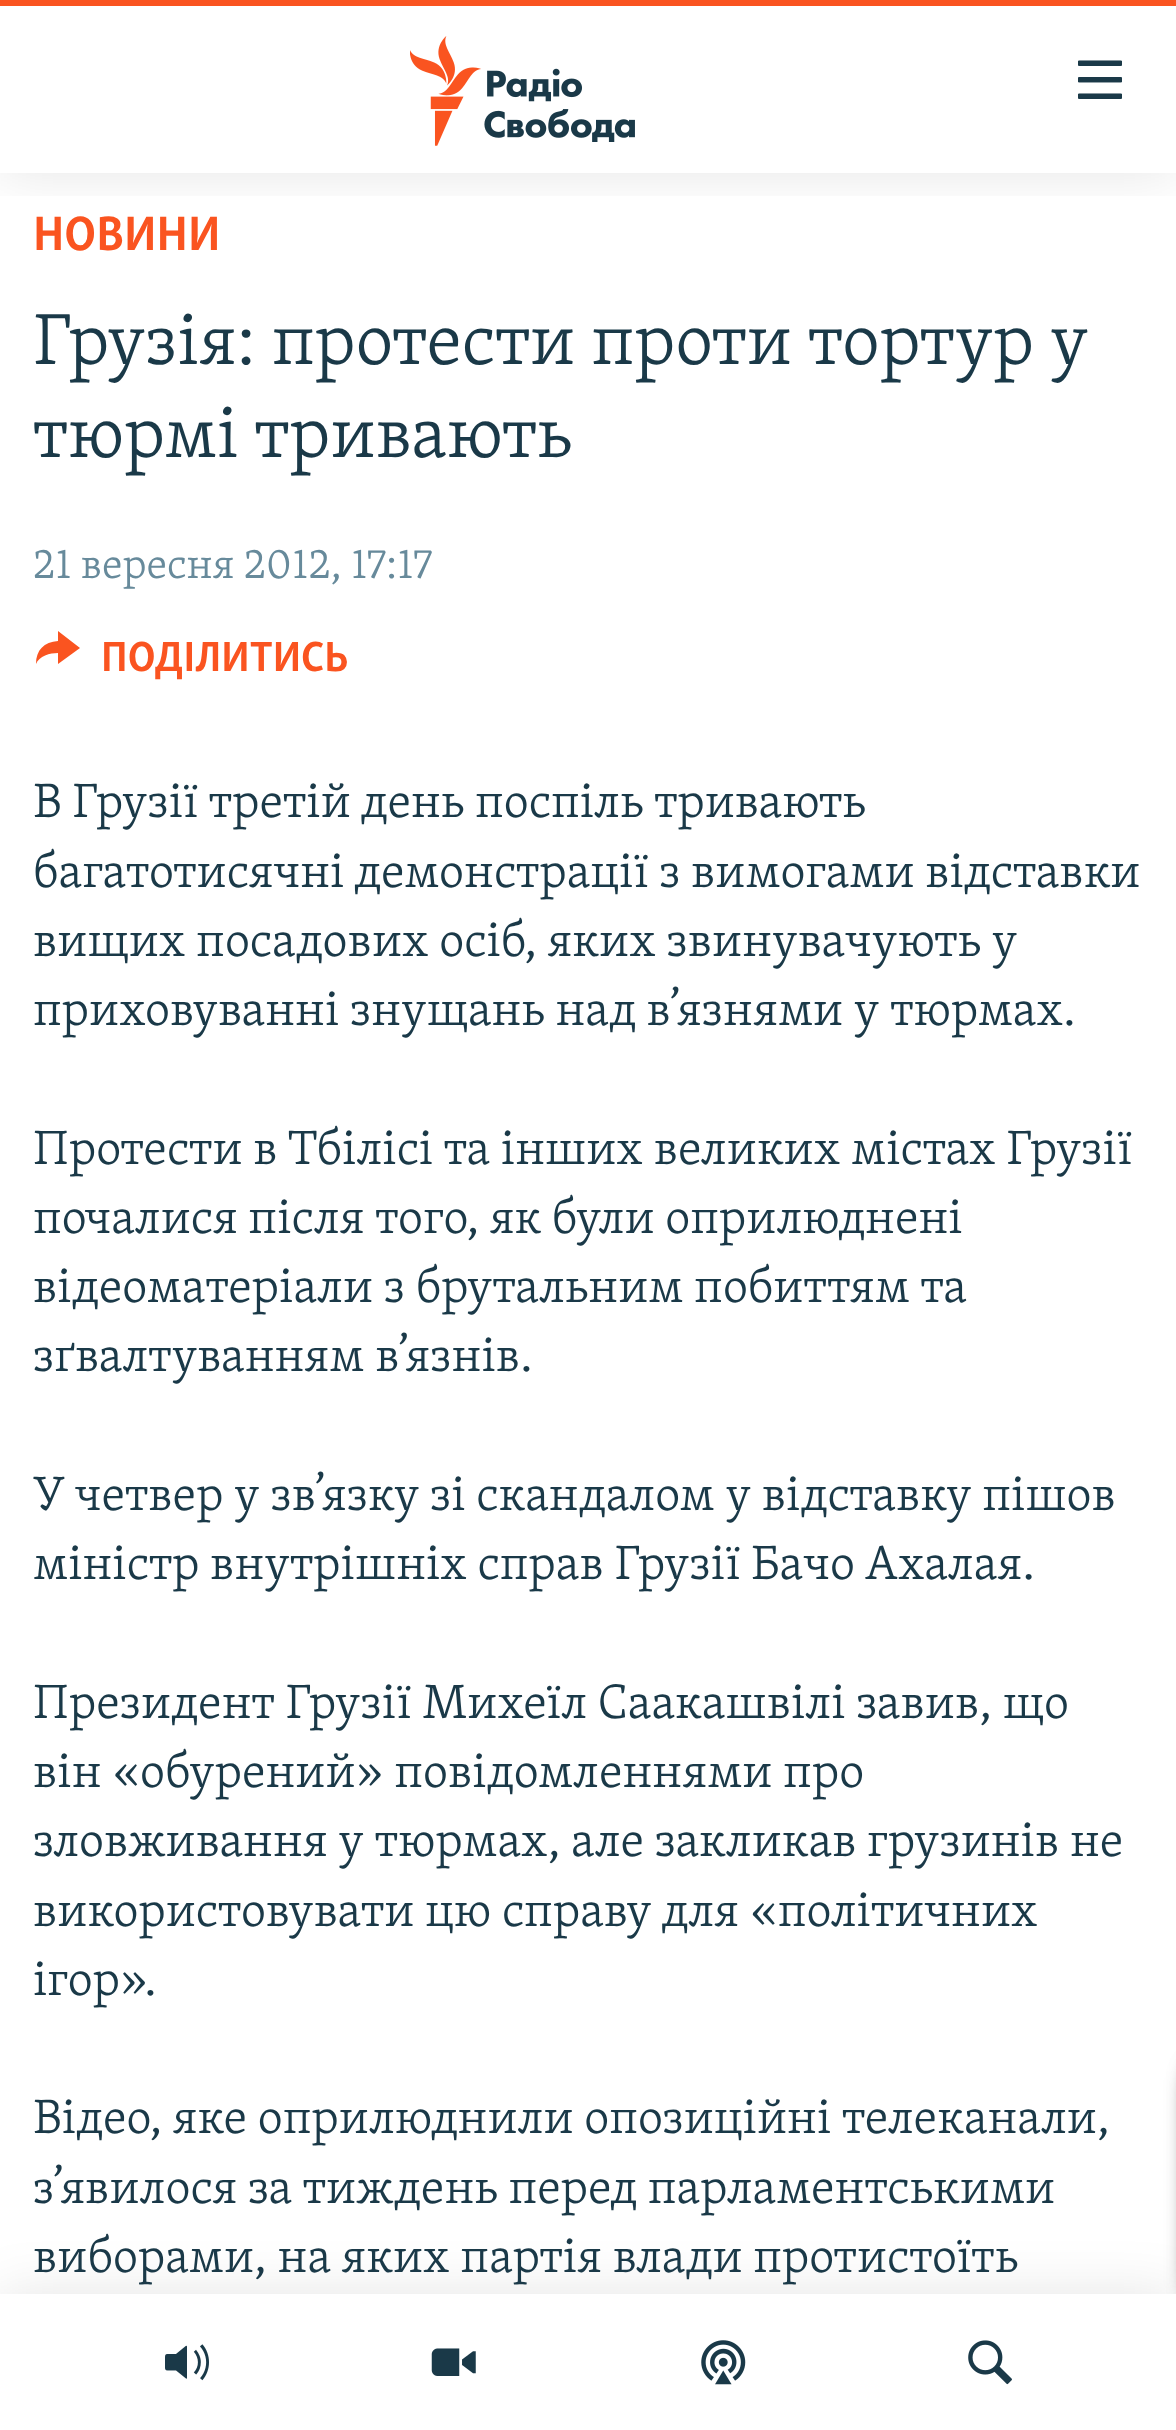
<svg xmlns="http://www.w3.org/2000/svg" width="1176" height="2430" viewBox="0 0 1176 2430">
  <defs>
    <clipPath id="clip1"><path d="M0 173h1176v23H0z"/></clipPath>
  </defs>
  <rect width="100%" height="100%" fill="#fff"/>
  <g clip-path="url(#clip1)">
    <path d="M0 0h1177v173H0z" fill="#0000001a" filter="blur(27.5px)"/>
  </g>
  <path d="M0 0h1176v6H0z" fill="#fa5420"/>
  <image x="410" y="36" width="225" height="110" href="img/1.png"/>
  <image x="1078" y="60" width="44" height="39" href="img/2.png"/>
  <path d="M0 2294h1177v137H0z" fill="#0000001a" filter="blur(27.5px)"/>
  <rect x="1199" y="2071" width="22" height="223" rx="3" fill="#000000d9" filter="blur(14px)"/>
  <rect x="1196" y="2071" width="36" height="223" rx="14" fill="#000000d9" filter="blur(14px)"/>
  <path d="M0 2294h1176v136H0z" fill="#fff"/>
  <image x="165" y="2344" width="44" height="37" href="img/3.png"/>
  <image x="431" y="2348" width="45" height="28" href="img/4.png"/>
  <image x="701" y="2340" width="45" height="45" href="img/5.png"/>
  <image x="968" y="2340" width="44" height="45" href="img/6.png"/>
  <path d="M36 664C36 650 44 642 58 641V631L80 648L58 664V653C50 653 39 656 36 664Z" fill="#fa5420"/>
  <text x="33" y="250" font-family="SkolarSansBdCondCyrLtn" font-size="49.5" font-weight="bold" fill="#fa5420">НОВИНИ</text>
  <g font-family="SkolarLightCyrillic" font-size="74.25" font-weight="300" fill="#1a3948">
    <text x="33" y="364">Грузія: протести проти тортур у</text>
    <text x="33" y="457">тюрмі тривають</text>
  </g>
  <text x="33" y="578" font-family="SkolarLightCyrillic" font-size="43.25" font-weight="300" fill="#678a9b">21 вересня 2012, 17:17</text>
  <text x="101" y="671" font-family="SkolarSansBdCondCyrLtn" font-size="43.25" font-weight="bold" fill="#fa5420">ПОДІЛИТИСЬ</text>
  <g font-family="SkolarLightCyrillic" font-size="49.5" font-weight="300" fill="#1a3948">
    <text x="33" y="817">В Грузії третій день поспіль тривають</text>
    <text x="33" y="887">багатотисячні демонстрації з вимогами відставки</text>
    <text x="33" y="956">вищих посадових осіб, яких звинувачують у</text>
    <text x="33" y="1025">приховуванні знущань над в’язнями у тюрмах.</text>
    <text x="33" y="1164">Протести в Тбілісі та інших великих містах Грузії</text>
    <text x="33" y="1233">почалися після того, як були оприлюднені</text>
    <text x="33" y="1302">відеоматеріали з брутальним побиттям та</text>
    <text x="33" y="1371">зґвалтуванням в’язнів.</text>
    <text x="33" y="1510">У четвер у зв’язку зі скандалом у відставку пішов</text>
    <text x="33" y="1579">міністр внутрішніх справ Грузії Бачо Ахалая.</text>
    <text x="33" y="1718">Президент Грузії Михеїл Саакашвілі завив, що</text>
    <text x="33" y="1787">він «обурений» повідомленнями про</text>
    <text x="33" y="1856">зловживання у тюрмах, але закликав грузинів не</text>
    <text x="33" y="1926">використовувати цю справу для «політичних</text>
    <text x="33" y="1995">ігор».</text>
    <text x="33" y="2133">Відео, яке оприлюднили опозиційні телеканали,</text>
    <text x="33" y="2203">з’явилося за тиждень перед парламентськими</text>
    <text x="33" y="2272">виборами, на яких партія влади протистоїть</text>
  </g>
</svg>
